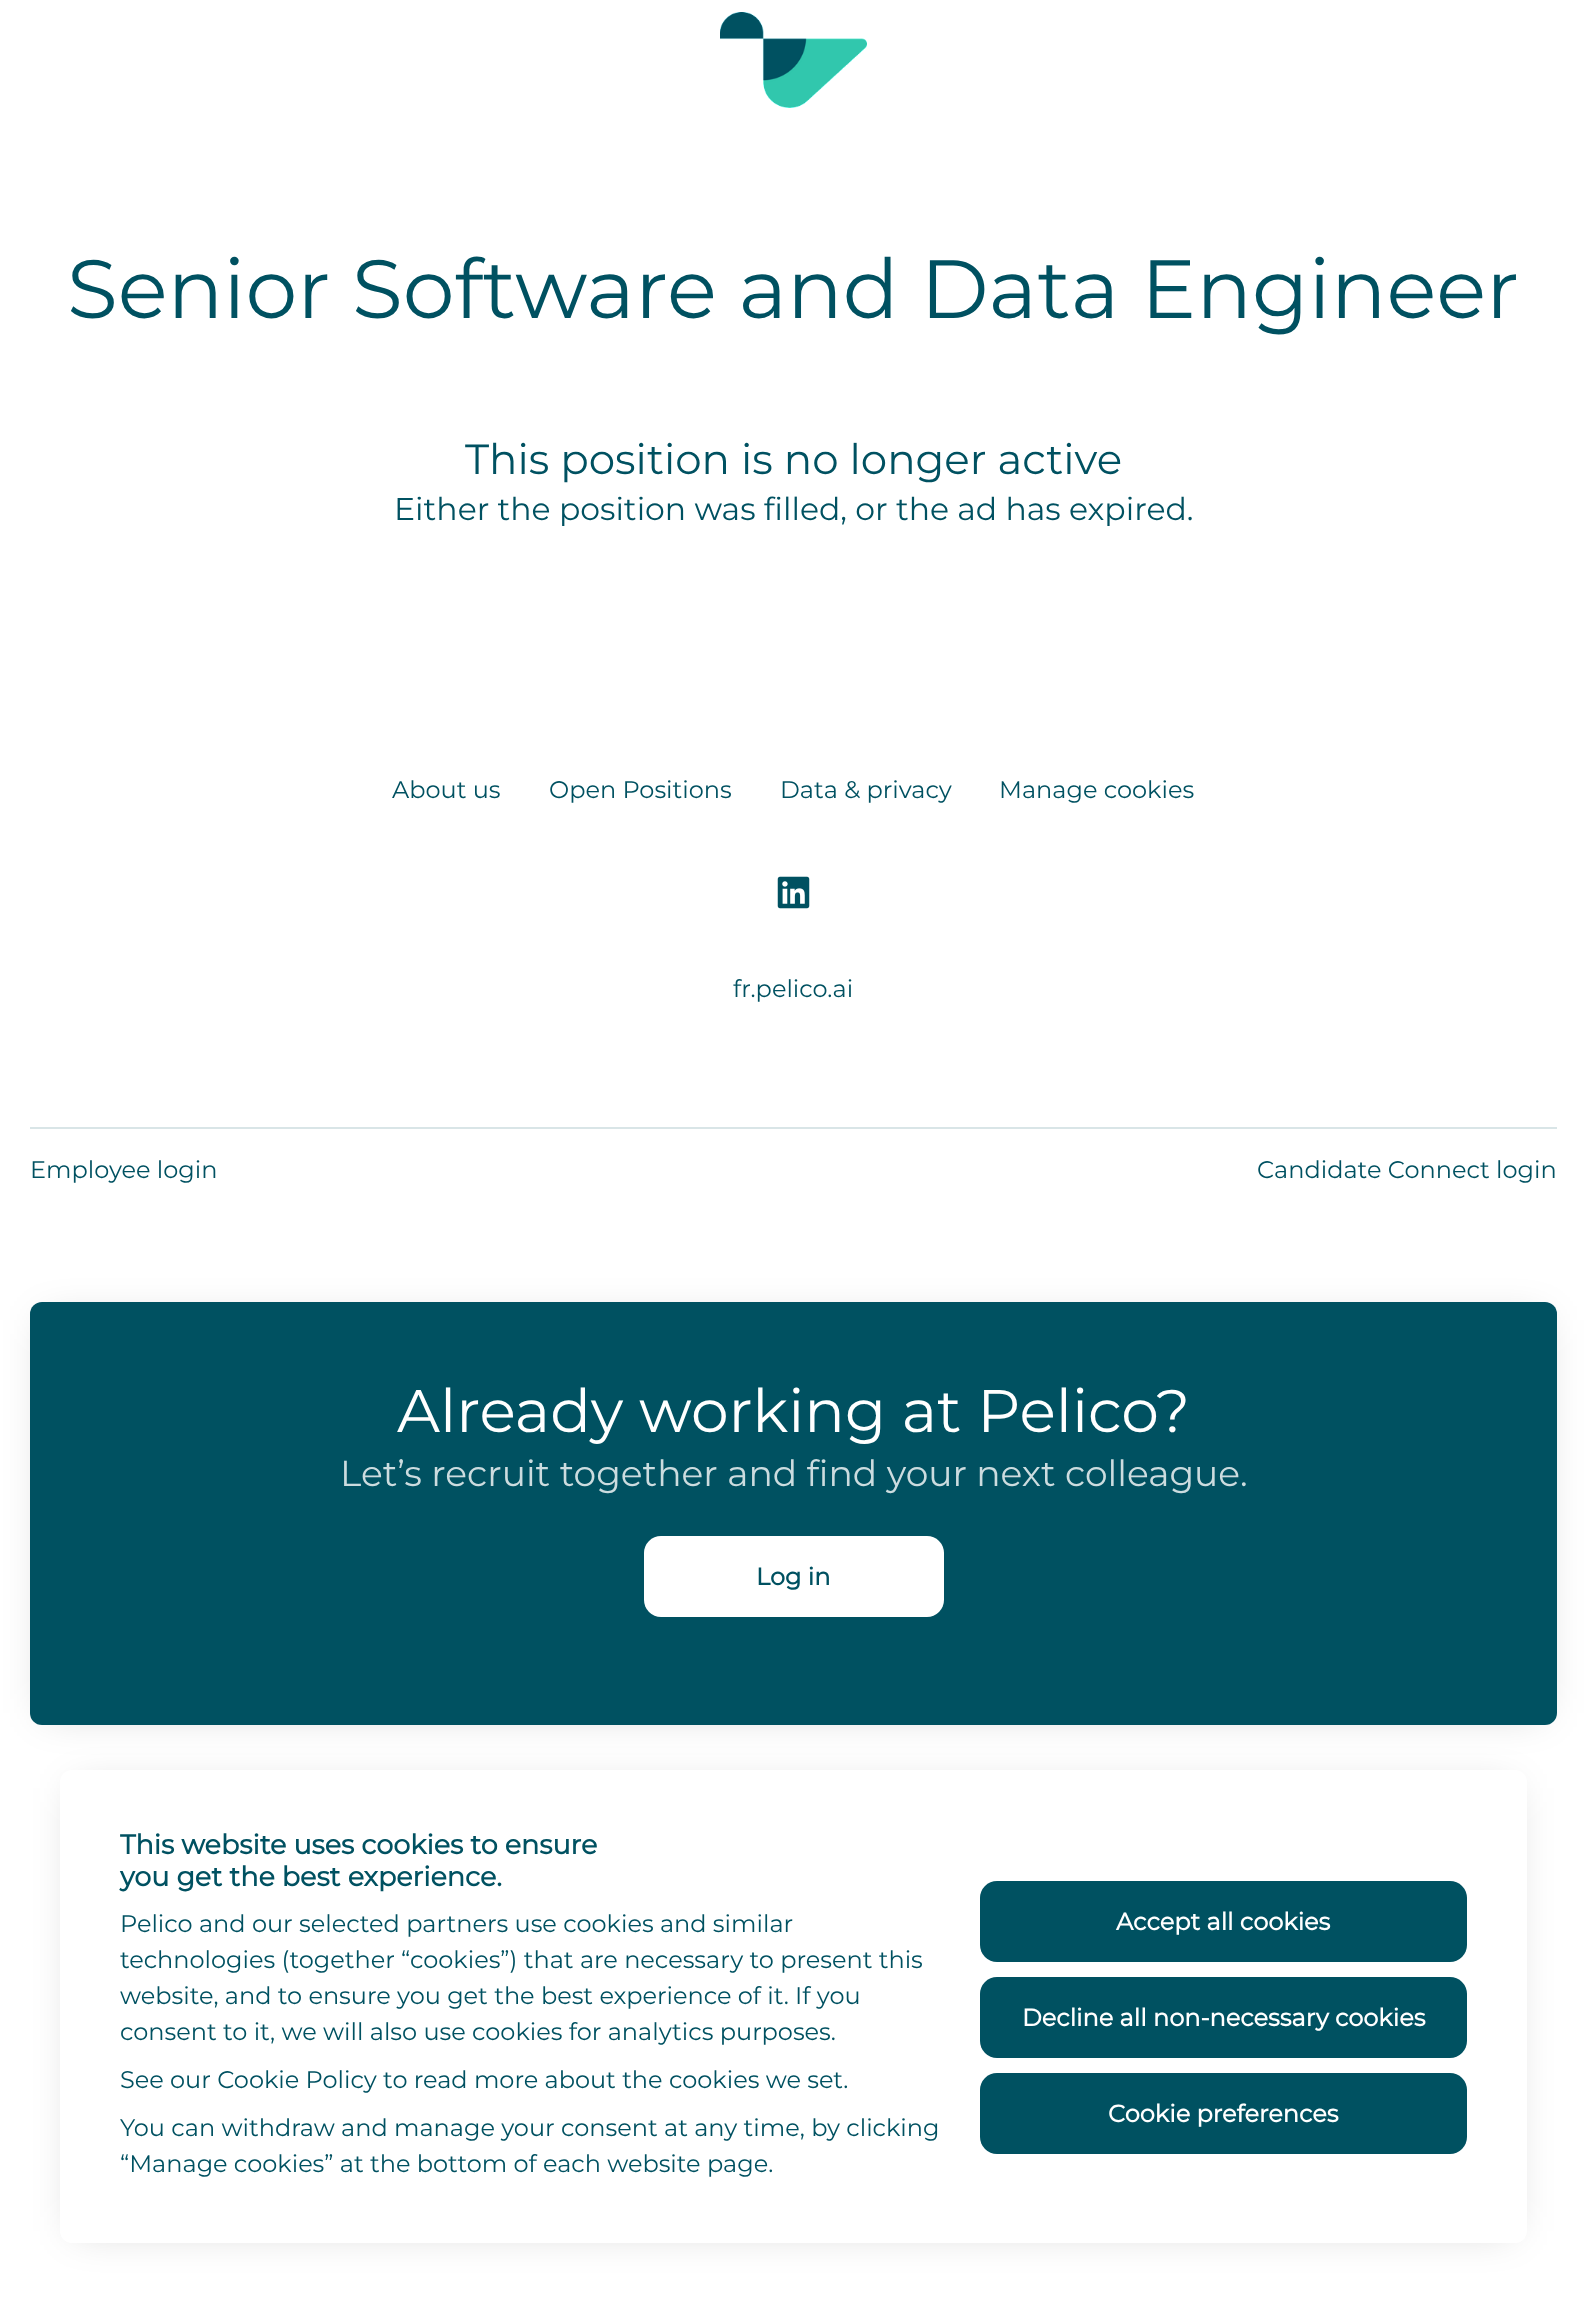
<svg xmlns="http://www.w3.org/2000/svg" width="1586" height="2302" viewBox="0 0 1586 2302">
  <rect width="100%" height="100%" fill="#fff"/>
  <image x="720" y="12" width="147" height="96" href="img/1.png"/>
  <image x="777" y="876" width="33" height="33" href="img/2.png"/>
  <path d="M30 1127h1527v2H30z" fill="#d9e5e7"/>
  <path d="M45 1320h1497v393H45z" fill="#0000002e" filter="blur(20px)"/>
  <rect x="30" y="1302" width="1527" height="423" rx="12" fill="#005161"/>
  <rect x="644" y="1536" width="300" height="81" rx="17" fill="#fff"/>
  <path d="M75 1788h1437v443H75z" fill="#0000002e" filter="blur(20px)"/>
  <rect x="60" y="1770" width="1467" height="473" rx="12" fill="#fff"/>
  <rect x="980" y="1881" width="487" height="81" rx="17" fill="#005161"/>
  <rect x="980" y="1977" width="487" height="81" rx="17" fill="#005161"/>
  <rect x="980" y="2073" width="487" height="81" rx="17" fill="#005161"/>
  <text x="67" y="318" font-family="Montserrat" font-size="82.5" fill="#005161">Senior Software and Data Engineer</text>
  <text x="465" y="474" font-family="Montserrat" font-size="42" fill="#005161">This position is no longer active</text>
  <text x="394" y="520" font-family="Montserrat" font-size="31.5" fill="#005161">Either the position was filled, or the ad has expired.</text>
  <g font-family="Montserrat" font-size="24" fill="#005161">
    <text x="392" y="798">About us</text>
    <text x="549" y="798">Open Positions</text>
    <text x="780" y="798">Data &amp; privacy</text>
    <text x="999" y="798">Manage cookies</text>
    <text x="733" y="997">fr.pelico.ai</text>
    <text x="30" y="1178">Employee login</text>
    <text x="1257" y="1178">Candidate Connect login</text>
  </g>
  <text x="397" y="1432" font-family="Montserrat" font-size="60" fill="#fff">Already working at Pelico?</text>
  <text x="340" y="1486" font-family="Montserrat" font-size="36" fill="#ccdcdf">Let’s recruit together and find your next colleague.</text>
  <text x="756" y="1585" font-family="Montserrat" font-size="24" font-weight="bold" fill="#005161">Log in</text>
  <g font-family="Montserrat" font-size="27" font-weight="bold" fill="#005161">
    <text x="120" y="1854">This website uses cookies to ensure</text>
    <text x="120" y="1886">you get the best experience.</text>
  </g>
  <g font-family="Montserrat" font-size="24" fill="#005161">
    <text x="120" y="1932">Pelico and our selected partners use cookies and similar</text>
    <text x="120" y="1968">technologies (together “cookies”) that are necessary to present this</text>
    <text x="120" y="2004">website, and to ensure you get the best experience of it. If you</text>
    <text x="120" y="2040">consent to it, we will also use cookies for analytics purposes.</text>
    <text x="120" y="2088">See our Cookie Policy to read more about the cookies we set.</text>
    <text x="120" y="2136">You can withdraw and manage your consent at any time, by clicking</text>
    <text x="120" y="2172">“Manage cookies” at the bottom of each website page.</text>
  </g>
  <g font-family="Montserrat" font-size="24" font-weight="bold" fill="#fff">
    <text x="1116" y="1930">Accept all cookies</text>
    <text x="1022" y="2026">Decline all non-necessary cookies</text>
    <text x="1108" y="2122">Cookie preferences</text>
  </g>
</svg>
